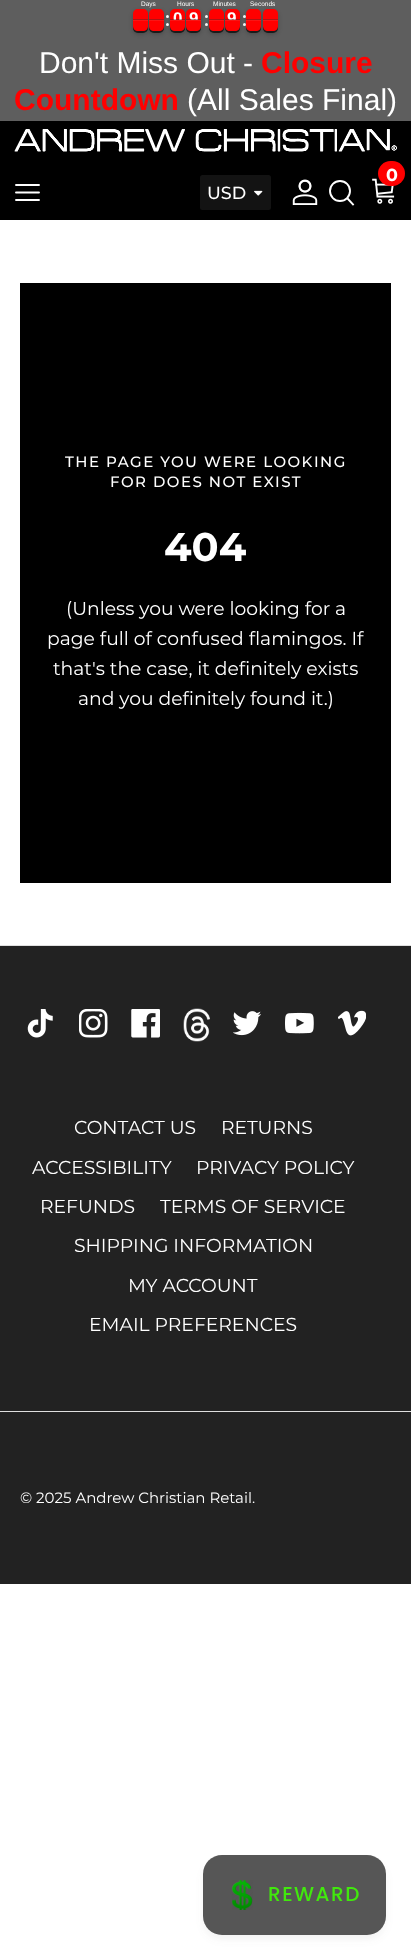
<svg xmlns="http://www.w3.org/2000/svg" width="411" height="1959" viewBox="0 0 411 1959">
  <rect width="100%" height="100%" fill="#fff"/>
  <path d="M0 0h411v121H0z" fill="#5e5e5e"/>
  <rect x="133" y="11" width="15" height="23" rx="5" fill="#0000003d" filter="blur(2px)"/>
  <rect x="133" y="21" width="15" height="12" rx="5" fill="#00000066" filter="blur(0.5px)"/>
  <rect x="149" y="11" width="15" height="23" rx="5" fill="#0000003d" filter="blur(2px)"/>
  <circle cx="167.5" cy="24.5" r="1.5" fill="#fff"/>
  <rect x="149" y="21" width="15" height="12" rx="5" fill="#00000066" filter="blur(0.5px)"/>
  <path d="M138 9H143C146 9 148 11 148 14V20H133V14C133 11 135 9 138 9Z" fill="#f00"/>
  <path d="M133 19h15v1H133z" fill="#33333366"/>
  <rect x="133" y="21" width="15" height="12" rx="5" fill="#00000066" filter="blur(0.5px)"/>
  <path d="M133 20H148V26C148 29 146 31 143 31H138C135 31 133 29 133 26Z" fill="#f00"/>
  <path d="M133 20h15v1H133z" fill="#cccccc1a"/>
  <circle cx="167.5" cy="16.5" r="1.5" fill="#fff"/>
  <rect x="170" y="11" width="15" height="23" rx="5" fill="#0000003d" filter="blur(2px)"/>
  <path d="M154 9H159C162 9 164 11 164 14V20H149V14C149 11 151 9 154 9Z" fill="#f00"/>
  <path d="M149 19h15v1H149z" fill="#33333366"/>
  <rect x="149" y="21" width="15" height="12" rx="5" fill="#00000066" filter="blur(0.5px)"/>
  <path d="M149 20H164V26C164 29 162 31 159 31H154C151 31 149 29 149 26Z" fill="#f00"/>
  <path d="M149 20h15v1H149z" fill="#cccccc1a"/>
  <rect x="170" y="21" width="15" height="12" rx="5" fill="#00000066" filter="blur(0.5px)"/>
  <rect x="186" y="11" width="15" height="23" rx="5" fill="#0000003d" filter="blur(2px)"/>
  <rect x="186" y="21" width="15" height="12" rx="5" fill="#00000066" filter="blur(0.5px)"/>
  <path d="M175 9H180C183 9 185 11 185 14V20H170V14C170 11 172 9 175 9Z" fill="#f00"/>
  <circle cx="206.5" cy="16.5" r="1.5" fill="#fff"/>
  <circle cx="206.5" cy="24.5" r="1.5" fill="#fff"/>
  <rect x="209" y="11" width="15" height="23" rx="5" fill="#0000003d" filter="blur(2px)"/>
  <rect x="209" y="21" width="15" height="12" rx="5" fill="#00000066" filter="blur(0.5px)"/>
  <rect x="225" y="11" width="15" height="23" rx="5" fill="#0000003d" filter="blur(2px)"/>
  <rect x="225" y="21" width="15" height="12" rx="5" fill="#00000066" filter="blur(0.5px)"/>
  <path d="M214 9H219C222 9 224 11 224 14V20H209V14C209 11 211 9 214 9Z" fill="#f00"/>
  <path d="M209 19h15v1H209z" fill="#33333366"/>
  <rect x="209" y="21" width="15" height="12" rx="5" fill="#00000066" filter="blur(0.5px)"/>
  <path d="M209 20H224V26C224 29 222 31 219 31H214C211 31 209 29 209 26Z" fill="#f00"/>
  <path d="M209 20h15v1H209z" fill="#cccccc1a"/>
  <circle cx="244.5" cy="16.5" r="1.5" fill="#fff"/>
  <circle cx="244.5" cy="24.5" r="1.5" fill="#fff"/>
  <rect x="246" y="11" width="15" height="23" rx="5" fill="#0000003d" filter="blur(2px)"/>
  <path d="M230 9H235C238 9 240 11 240 14V20H225V14C225 11 227 9 230 9Z" fill="#f00"/>
  <rect x="246" y="21" width="15" height="12" rx="5" fill="#00000066" filter="blur(0.5px)"/>
  <rect x="263" y="11" width="15" height="23" rx="5" fill="#0000003d" filter="blur(2px)"/>
  <rect x="263" y="21" width="15" height="12" rx="5" fill="#00000066" filter="blur(0.5px)"/>
  <path d="M251 9H256C259 9 261 11 261 14V20H246V14C246 11 248 9 251 9Z" fill="#f00"/>
  <path d="M246 19h15v1H246z" fill="#33333366"/>
  <rect x="246" y="21" width="15" height="12" rx="5" fill="#00000066" filter="blur(0.5px)"/>
  <path d="M246 20H261V26C261 29 259 31 256 31H251C248 31 246 29 246 26Z" fill="#f00"/>
  <path d="M246 20h15v1H246z" fill="#cccccc1a"/>
  <path d="M268 9H273C276 9 278 11 278 14V20H263V14C263 11 265 9 268 9Z" fill="#f00"/>
  <path d="M263 19h15v1H263z" fill="#33333366"/>
  <rect x="263" y="21" width="15" height="12" rx="5" fill="#00000066" filter="blur(0.5px)"/>
  <path d="M263 20H278V26C278 29 276 31 273 31H268C265 31 263 29 263 26Z" fill="#f00"/>
  <path d="M263 20h15v1H263z" fill="#cccccc1a"/>
  <path d="M0 121h411v99H0z" fill="#000"/>
  <image x="14" y="129" width="383" height="23" href="img/1.png"/>
  <path d="M16 192.5H39M16 185H39M16 200H39" fill="none" stroke="#fff" stroke-width="1.9" stroke-linecap="round" stroke-linejoin="round"/>
  <image x="372" y="178" width="23" height="26" href="img/2.png"/>
  <rect x="378" y="161" width="27" height="25" rx="12.5" fill="#f00"/>
  <image x="292" y="179" width="26" height="26" href="img/3.png"/>
  <circle cx="340" cy="191" r="10" fill="none" stroke="#fff" stroke-width="1.9"/>
  <path d="M347.5 198.5L353 204.5" fill="none" stroke="#fff" stroke-width="1.9" stroke-linecap="square"/>
  <rect x="200" y="175" width="71" height="35" rx="2.5" fill="#131313"/>
  <image x="254" y="190" width="9" height="6" href="img/4.png"/>
  <path d="M20 283h371v600H20z" fill="#000"/>
  <path d="M0 946h411v638H0z" fill="#222"/>
  <path d="M0 945h411v1H0z" fill="#e0e0e0"/>
  <image x="27" y="1009" width="26" height="29" href="img/5.png"/>
  <image x="79" y="1009" width="29" height="29" href="img/6.png"/>
  <image x="131" y="1009" width="29" height="29" href="img/7.png"/>
  <image x="183" y="1008" width="27" height="34" href="img/8.png"/>
  <image x="233" y="1011" width="28" height="25" href="img/9.png"/>
  <image x="285" y="1012" width="29" height="22" href="img/10.png"/>
  <image x="338" y="1010" width="28" height="26" href="img/11.png"/>
  <path d="M0 1411h411v1H0z" fill="#e0e0e0"/>
  <rect x="205" y="1863" width="179" height="75" rx="16" fill="#44444414" filter="blur(5px)"/>
  <rect x="203" y="1855" width="183" height="80" rx="19" fill="#565656"/>
  <image x="232" y="1880" width="21" height="30" href="img/12.png"/>
  <g font-family="Liberation Sans" font-size="6.5" fill="#fff">
    <text x="141" y="6">Days</text>
    <text x="177" y="6">Hours</text>
  </g>
  <text x="173" y="24" font-family="Liberation Sans" font-size="17" font-weight="bold" fill="#fff">0</text>
  <path d="M170 19h15v1H170z" fill="#33333366"/>
  <rect x="170" y="21" width="15" height="12" rx="5" fill="#00000066" filter="blur(0.5px)"/>
  <path d="M170 20H185V26C185 29 183 31 180 31H175C172 31 170 29 170 26Z" fill="#f00"/>
  <path d="M170 20h15v1H170z" fill="#cccccc1a"/>
  <path d="M191 9H196C199 9 201 11 201 14V20H186V14C186 11 188 9 191 9Z" fill="#f00"/>
  <text x="189" y="24" font-family="Liberation Sans" font-size="17" font-weight="bold" fill="#fff">9</text>
  <path d="M186 19h15v1H186z" fill="#33333366"/>
  <rect x="186" y="21" width="15" height="12" rx="5" fill="#00000066" filter="blur(0.5px)"/>
  <path d="M186 20H201V26C201 29 199 31 196 31H191C188 31 186 29 186 26Z" fill="#f00"/>
  <path d="M186 20h15v1H186z" fill="#cccccc1a"/>
  <text x="213" y="6" font-family="Liberation Sans" font-size="6.5" fill="#fff">Minutes</text>
  <text x="227" y="24" font-family="Liberation Sans" font-size="17" font-weight="bold" fill="#fff">9</text>
  <path d="M225 19h15v1H225z" fill="#33333366"/>
  <rect x="225" y="21" width="15" height="12" rx="5" fill="#00000066" filter="blur(0.5px)"/>
  <path d="M225 20H240V26C240 29 238 31 235 31H230C227 31 225 29 225 26Z" fill="#f00"/>
  <path d="M225 20h15v1H225z" fill="#cccccc1a"/>
  <text x="250" y="6" font-family="Liberation Sans" font-size="6.5" fill="#fff">Seconds</text>
  <text x="39" y="73" font-family="Liberation Sans" font-size="30" fill="#fff">Don't Miss Out -</text>
  <g font-family="Liberation Sans" font-size="30" font-weight="bold" fill="#f00">
    <text x="261" y="73">Closure</text>
    <text x="14" y="110">Countdown</text>
  </g>
  <text x="187" y="110" font-family="Liberation Sans" font-size="30" fill="#fff">(All Sales Final)</text>
  <text x="386" y="181" font-family="Montserrat" font-size="17.5" font-weight="bold" fill="#fff">0</text>
  <text x="207" y="199" font-family="Montserrat" font-size="17.5" font-weight="500" fill="#fff">USD</text>
  <g font-family="Montserrat" font-size="15" font-weight="500" letter-spacing="1.5" fill="#fff">
    <text x="65" y="467">THE PAGE YOU WERE LOOKING</text>
    <text x="110" y="487">FOR DOES NOT EXIST</text>
  </g>
  <text x="164" y="561" font-family="Montserrat" font-size="40" font-weight="bold" fill="#fff">404</text>
  <g font-family="Montserrat" font-size="18.75" fill="#fff">
    <text x="66" y="615">(Unless you were looking for a</text>
    <text x="47" y="645">page full of confused flamingos. If</text>
    <text x="53" y="675">that's the case, it definitely exists</text>
    <text x="78" y="705">and you definitely found it.)</text>
    <text x="74" y="1134">CONTACT US</text>
    <text x="221" y="1134">RETURNS</text>
    <text x="32" y="1174">ACCESSIBILITY</text>
    <text x="196" y="1174">PRIVACY POLICY</text>
    <text x="40" y="1213">REFUNDS</text>
    <text x="160" y="1213">TERMS OF SERVICE</text>
    <text x="74" y="1252">SHIPPING INFORMATION</text>
    <text x="128" y="1292">MY ACCOUNT</text>
    <text x="89" y="1331">EMAIL PREFERENCES</text>
  </g>
  <text x="20" y="1503" font-family="Montserrat" font-size="15" fill="#fff">© 2025 Andrew Christian Retail.</text>
  <text x="268" y="1901" font-family="Poppins" font-size="20" font-weight="500" letter-spacing="1.5" fill="#41e80d">REWARD</text>
</svg>
